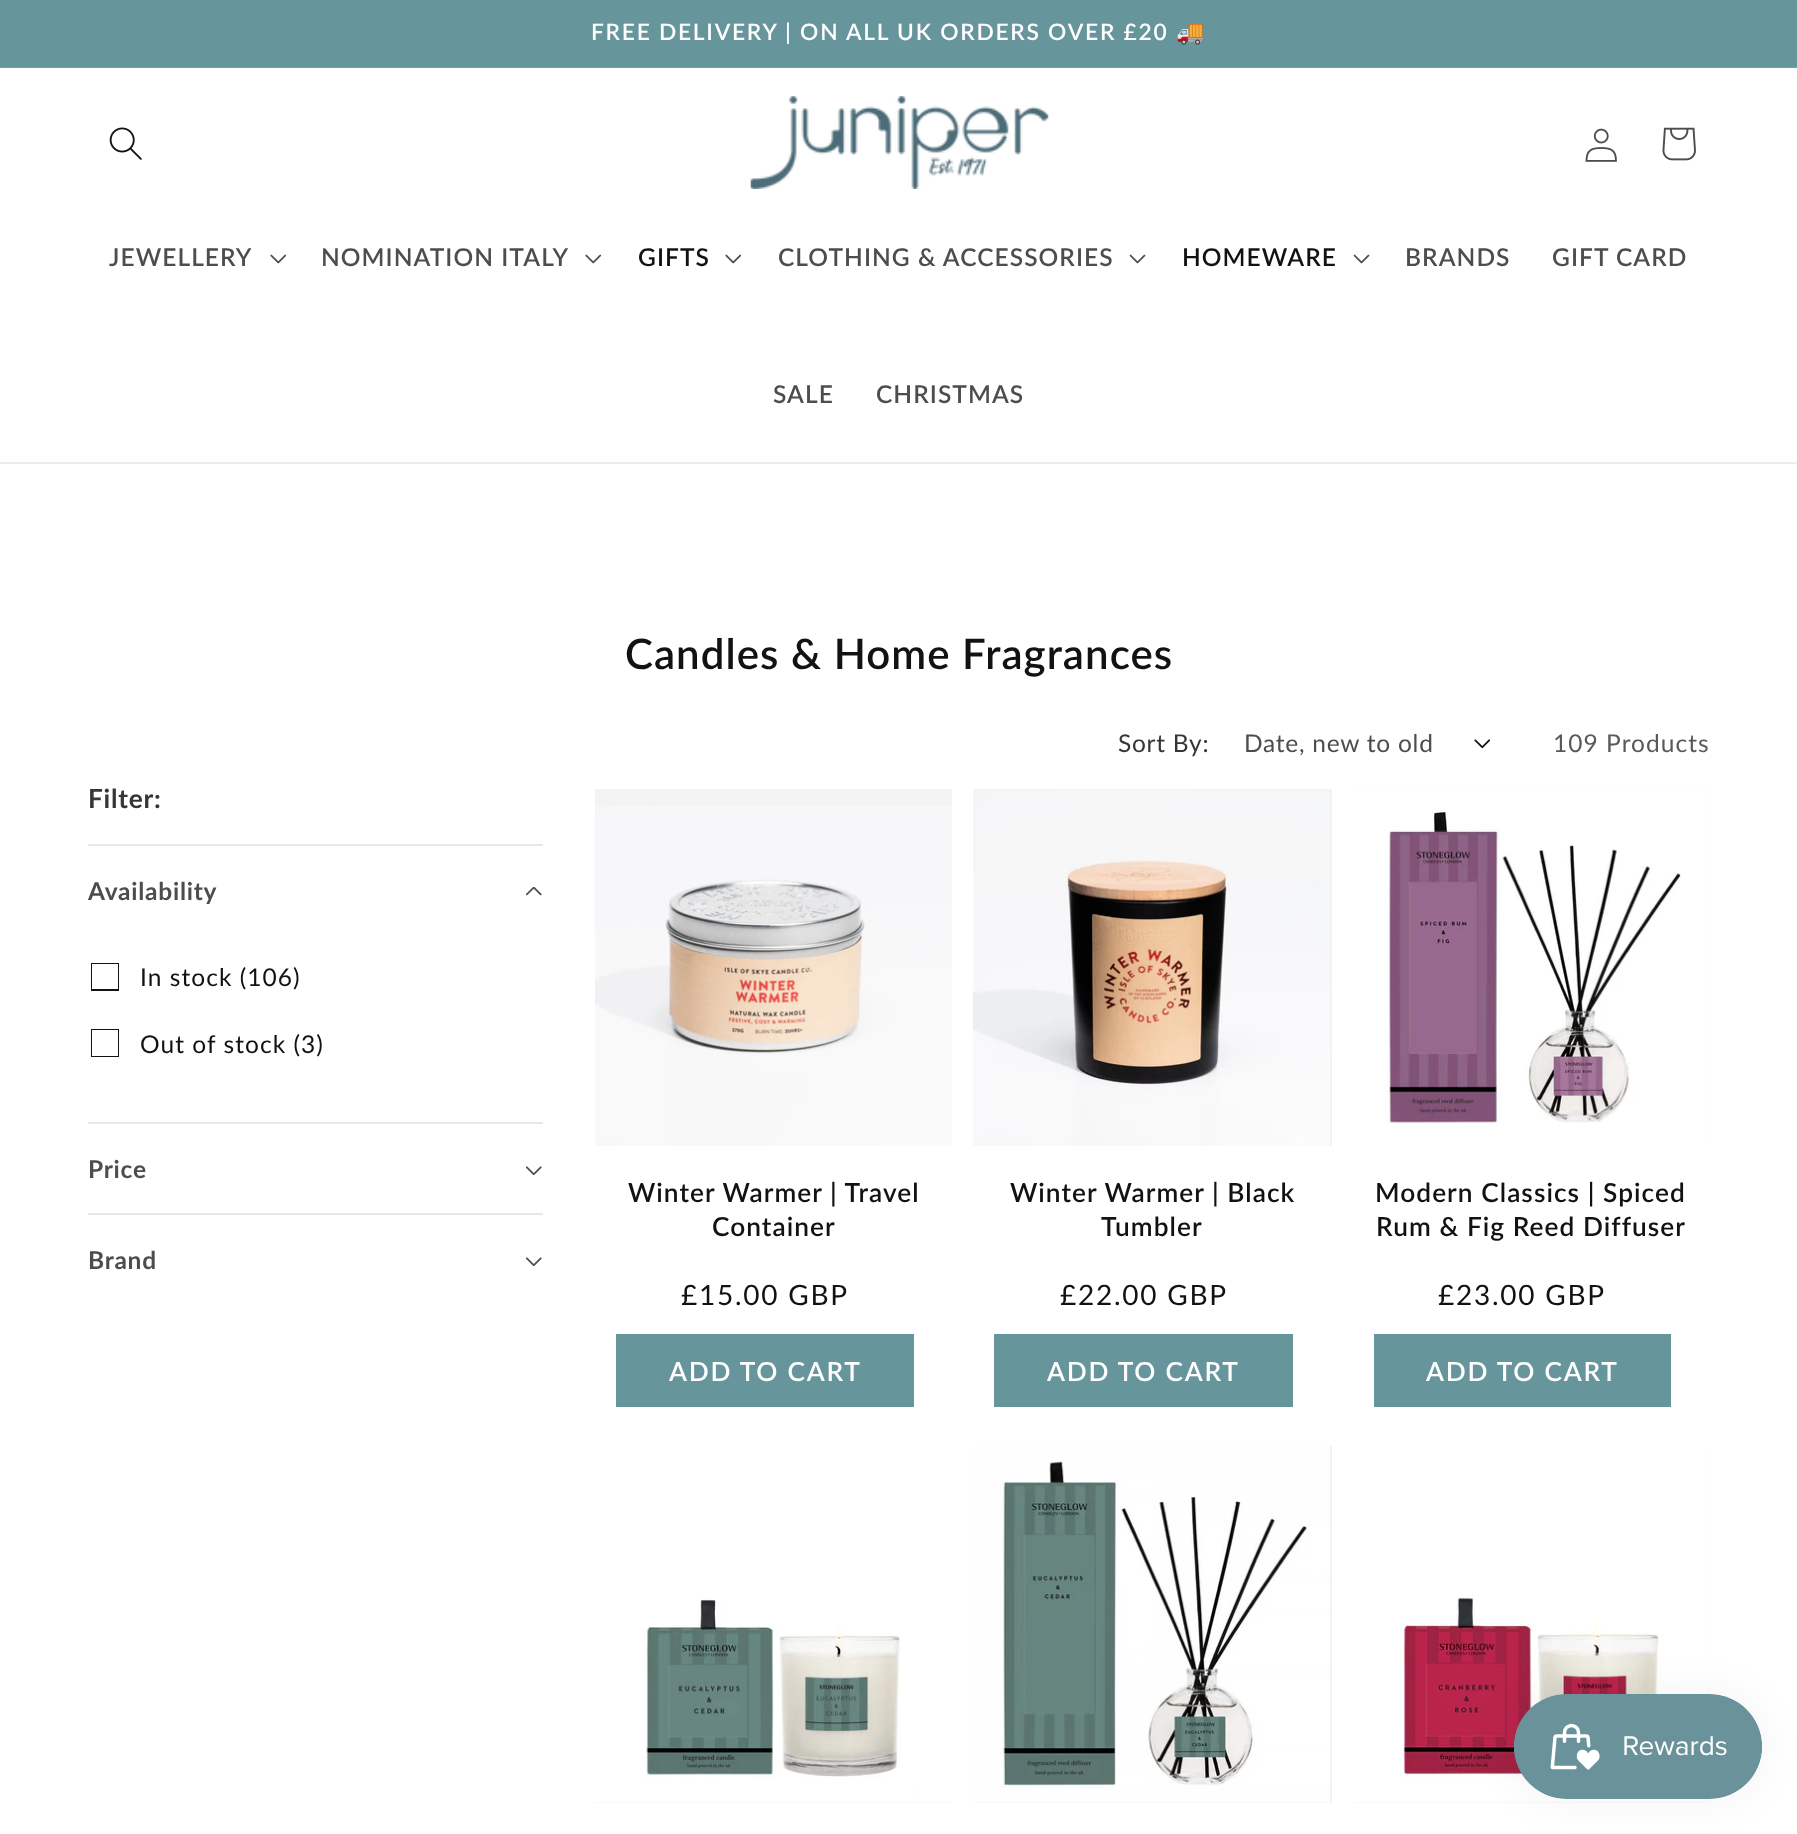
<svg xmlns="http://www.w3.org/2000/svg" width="1797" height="1834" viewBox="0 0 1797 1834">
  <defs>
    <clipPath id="clip1"><path d="M91 963h28v28H91z"/></clipPath>
    <clipPath id="clip2"><path d="M91 1029h28v28H91z"/></clipPath>
  </defs>
  <rect width="100%" height="100%" fill="#fff"/>
  <path d="M0 0h1797v67H0z" fill="#66969c"/>
  <path d="M0 67h1797v1H0z" fill="#729ea4"/>
  <path d="M0 462h1797v2H0z" fill="#ececec"/>
  <image x="109" y="127" width="33" height="33" href="img/1.png"/>
  <image x="750" y="96" width="299" height="93" href="img/2.png"/>
  <image x="1585" y="128" width="32" height="34" href="img/3.png"/>
  <image x="1662" y="127" width="34" height="34" href="img/4.png"/>
  <image x="270" y="254" width="17" height="10" href="img/5.png"/>
  <image x="585" y="254" width="17" height="10" href="img/5.png"/>
  <image x="725" y="254" width="17" height="10" href="img/5.png"/>
  <image x="1129" y="254" width="17" height="10" href="img/6.png"/>
  <image x="1353" y="254" width="17" height="10" href="img/6.png"/>
  <image x="1474" y="739" width="17" height="10" href="img/7.png"/>
  <path d="M88 844h455v2H88z" fill="#e7e7e7"/>
  <image x="525" y="887" width="17" height="9" href="img/8.png"/>
  <g clip-path="url(#clip1)">
    <path d="M91 963h28v27H91z" fill="none" stroke="#121212" stroke-width="2"/>
  </g>
  <g clip-path="url(#clip2)">
    <path d="M91 1029h28v28H91z" fill="none" stroke="#121212" stroke-width="2"/>
  </g>
  <path d="M88 1122h455v2H88z" fill="#e7e7e7"/>
  <image x="525" y="1166" width="17" height="10" href="img/9.png"/>
  <path d="M88 1213h455v2H88z" fill="#e7e7e7"/>
  <image x="525" y="1257" width="17" height="10" href="img/9.png"/>
  <path d="M595 789h357v16H595z" fill="#f3f3f3"/>
  <image x="595" y="805" width="357" height="341" href="img/10.png"/>
  <path d="M616 1334h298v73H616z" fill="#66969c"/>
  <path d="M973 789h359v357H973z" fill="#f3f3f3"/>
  <image x="973" y="790" width="357" height="356" href="img/11.png"/>
  <path d="M994 1334h299v73H994z" fill="#66969c"/>
  <path d="M1353 789h357v357H1353z" fill="#f3f3f3"/>
  <image x="1353" y="789" width="357" height="357" href="img/12.png"/>
  <path d="M1374 1334h297v73H1374z" fill="#66969c"/>
  <path d="M595 1802h357v1H595z" fill="#f3f3f3"/>
  <image x="595" y="1446" width="357" height="357" href="img/13.png"/>
  <path d="M973 1446h359v357H973z" fill="#f3f3f3"/>
  <image x="973" y="1446" width="357" height="357" href="img/14.png"/>
  <path d="M1353 1446h357v357H1353z" fill="#f3f3f3"/>
  <image x="1353" y="1446" width="357" height="357" href="img/15.png"/>
  <rect x="1514" y="1694" width="248" height="105" rx="52.5" fill="#0000000d" filter="blur(22px)"/>
  <image x="1514" y="1694" width="248" height="105" href="img/16.png"/>
  <text x="591" y="40" font-family="Lato" font-size="22.75" font-weight="600" letter-spacing="1.75" fill="#fff">FREE DELIVERY | ON ALL UK ORDERS OVER £20</text>
  <text x="1176" y="40" font-family="Noto Color Emoji" font-size="22.75" font-weight="bold" letter-spacing="1.75" fill="#fff">🚚</text>
  <g font-family="Lato" font-size="24.5" font-weight="600" letter-spacing="1.05" fill="#4d4d4d">
    <text x="109" y="266">JEWELLERY</text>
    <text x="321" y="266">NOMINATION ITALY</text>
  </g>
  <text x="638" y="266" font-family="Lato" font-size="24.5" font-weight="600" letter-spacing="1.05" fill="#121212">GIFTS</text>
  <text x="778" y="266" font-family="Lato" font-size="24.5" font-weight="600" letter-spacing="1.05" fill="#4d4d4d">CLOTHING &amp; ACCESSORIES</text>
  <text x="1182" y="266" font-family="Lato" font-size="24.5" font-weight="600" letter-spacing="1.05" fill="#121212">HOMEWARE</text>
  <g font-family="Lato" font-size="24.5" font-weight="600" letter-spacing="1.05" fill="#4d4d4d">
    <text x="1405" y="266">BRANDS</text>
    <text x="1552" y="266">GIFT CARD</text>
    <text x="773" y="403">SALE</text>
    <text x="876" y="403">CHRISTMAS</text>
  </g>
  <text x="625" y="669" font-family="Lato" font-size="42" font-weight="600" letter-spacing="1.05" fill="#121212">Candles &amp; Home Fragrances</text>
  <text x="1118" y="752" font-family="Lato" font-size="24.5" letter-spacing="0.75" fill="#363636">Sort By:</text>
  <text x="1244" y="752" font-family="Lato" font-size="24.5" letter-spacing="0.75" fill="#4d4d4d">Date, new to old</text>
  <text x="1553" y="752" font-family="Lato" font-size="24.5" letter-spacing="1.05" fill="#595959">109 Products</text>
  <text x="88" y="808" font-family="Lato" font-size="26.25" font-weight="bold" letter-spacing="0.75" fill="#363636">Filter:</text>
  <text x="88" y="900" font-family="Lato" font-size="24.5" font-weight="bold" letter-spacing="0.75" fill="#4d4d4d">Availability</text>
  <g font-family="Lato" font-size="24.5" letter-spacing="1.05" fill="#121212">
    <text x="140" y="986">In stock (106)</text>
    <text x="140" y="1053">Out of stock (3)</text>
  </g>
  <g font-family="Lato" font-size="24.5" font-weight="bold" letter-spacing="0.75" fill="#4d4d4d">
    <text x="88" y="1178">Price</text>
    <text x="88" y="1269">Brand</text>
  </g>
  <g font-family="Lato" font-size="26.25" font-weight="600" letter-spacing="1.05" fill="#121212">
    <text x="628" y="1202">Winter Warmer | Travel</text>
    <text x="712" y="1236">Container</text>
  </g>
  <text x="681" y="1305" font-family="Lato" font-size="28" letter-spacing="1.75" fill="#121212">£15.00 GBP</text>
  <text x="669" y="1381" font-family="Lato" font-size="26.25" font-weight="600" letter-spacing="1.75" fill="#fff">ADD TO CART</text>
  <g font-family="Lato" font-size="26.25" font-weight="600" letter-spacing="1.05" fill="#121212">
    <text x="1010" y="1202">Winter Warmer | Black</text>
    <text x="1101" y="1236">Tumbler</text>
  </g>
  <text x="1060" y="1305" font-family="Lato" font-size="28" letter-spacing="1.75" fill="#121212">£22.00 GBP</text>
  <text x="1047" y="1381" font-family="Lato" font-size="26.25" font-weight="600" letter-spacing="1.75" fill="#fff">ADD TO CART</text>
  <g font-family="Lato" font-size="26.25" font-weight="600" letter-spacing="1.05" fill="#121212">
    <text x="1375" y="1202">Modern Classics | Spiced</text>
    <text x="1376" y="1236">Rum &amp; Fig Reed Diffuser</text>
  </g>
  <text x="1438" y="1305" font-family="Lato" font-size="28" letter-spacing="1.75" fill="#121212">£23.00 GBP</text>
  <text x="1426" y="1381" font-family="Lato" font-size="26.25" font-weight="600" letter-spacing="1.75" fill="#fff">ADD TO CART</text>
</svg>
